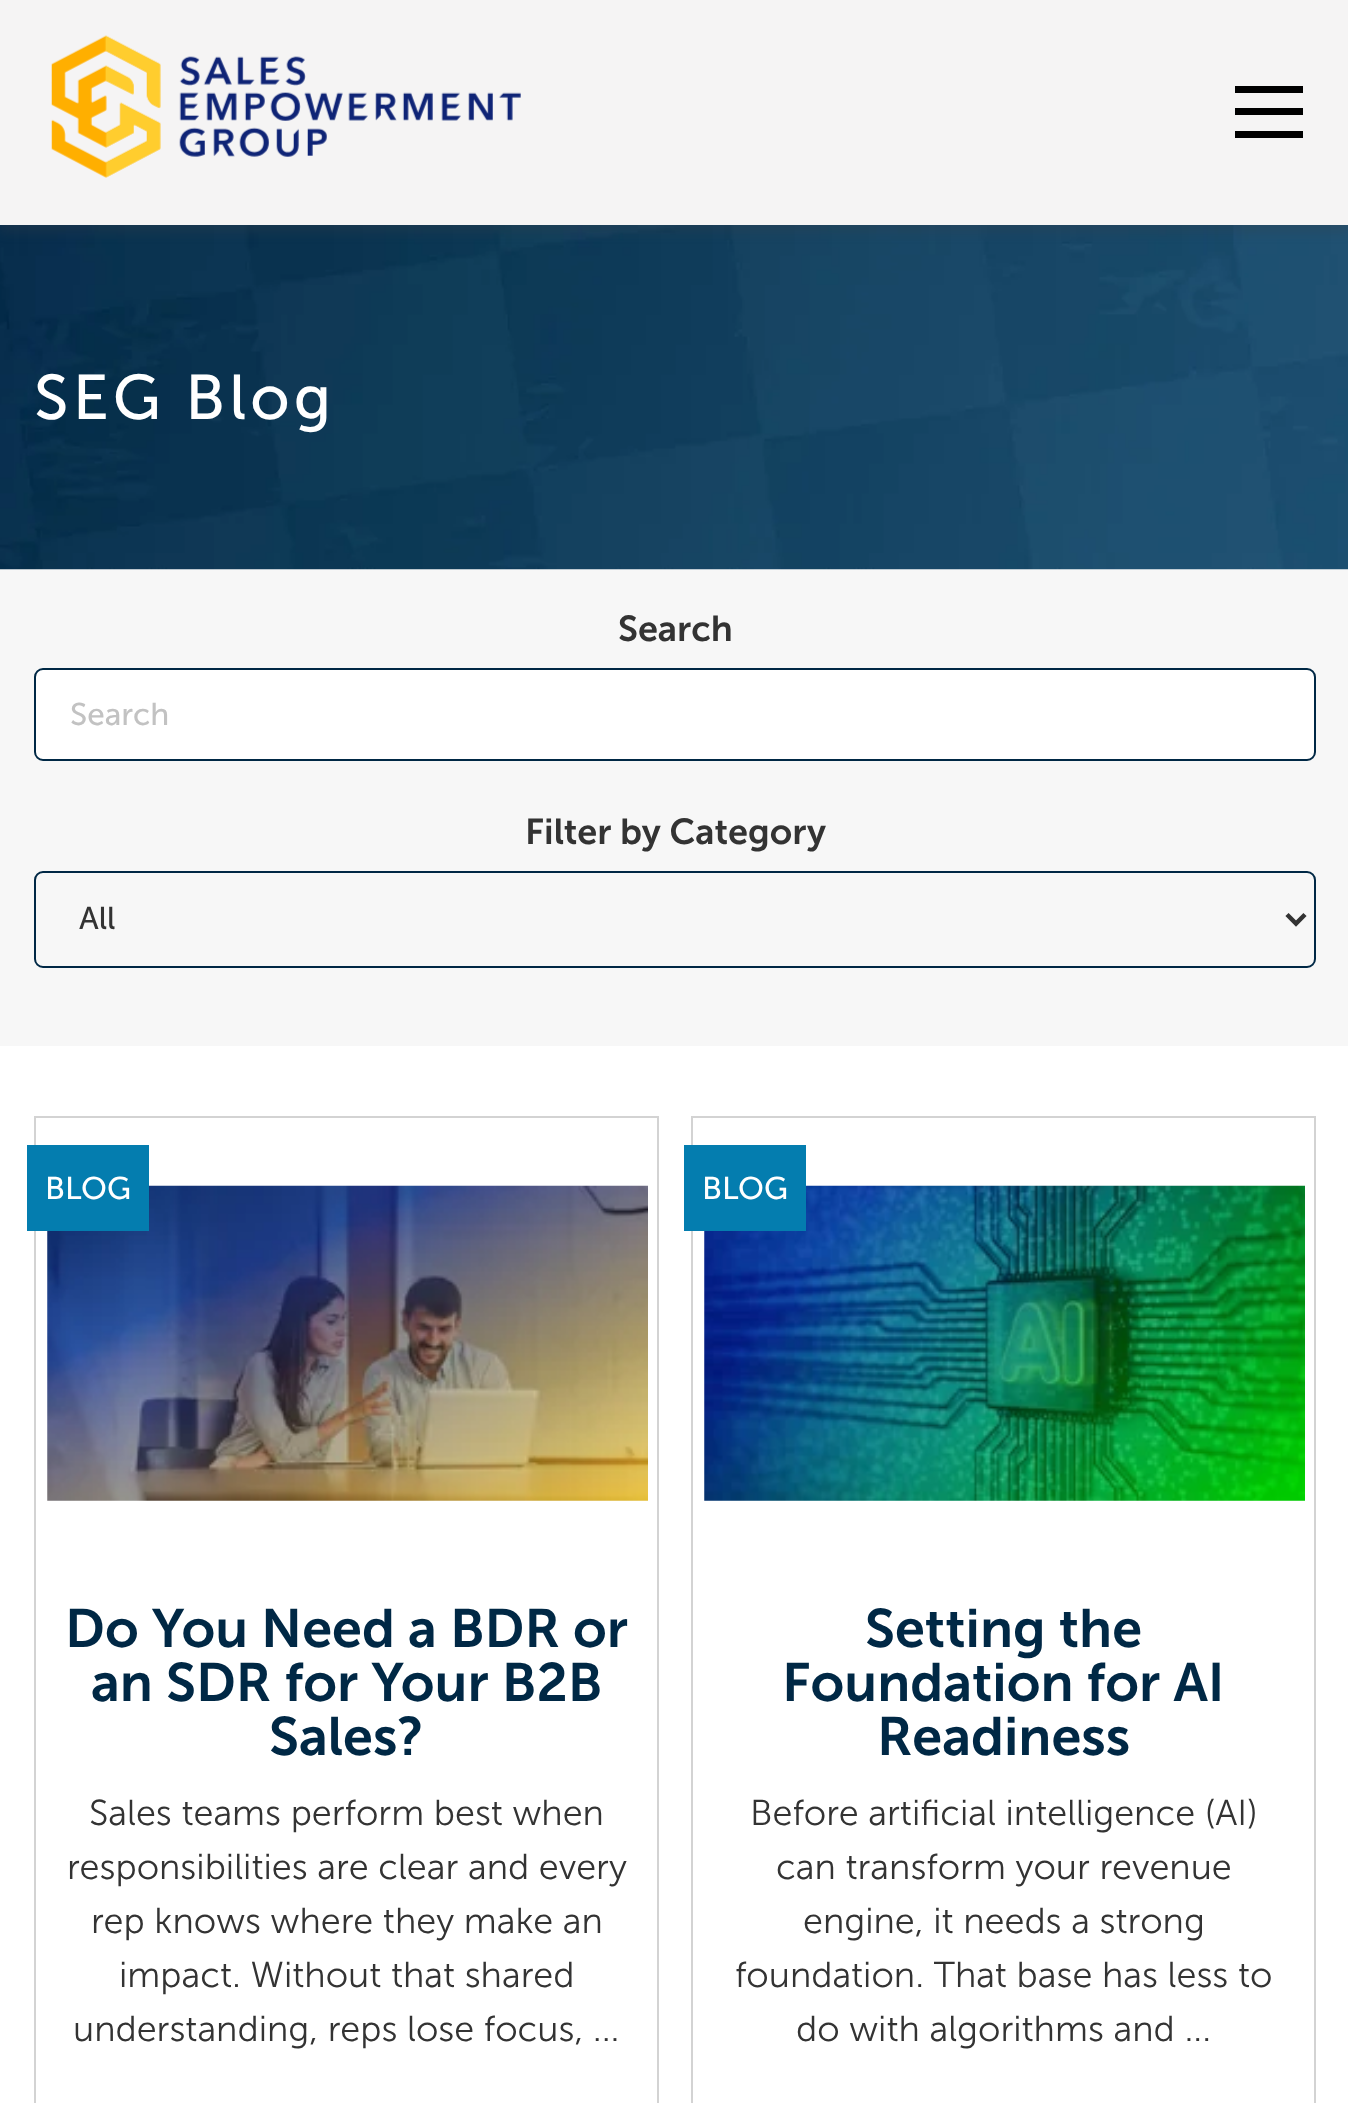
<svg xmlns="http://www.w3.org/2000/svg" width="1348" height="2103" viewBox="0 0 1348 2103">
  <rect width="100%" height="100%" fill="#fff"/>
  <path d="M0 569h1348v477H0z" fill="#f7f7f7"/>
  <image x="0" y="225" width="1348" height="345" href="img/2.png"/>
  <path d="M0 7h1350v225H0z" fill="#393f484d" filter="blur(5.5px)"/>
  <path d="M0 0h1348v225H0z" fill="#f5f4f4"/>
  <image x="51" y="35" width="470" height="143" href="img/1.png"/>
  <path d="M1235 108h68v7H1235z" fill="#000"/>
  <path d="M1235 86h68v7H1235z" fill="#000"/>
  <path d="M1235 131h68v7H1235z" fill="#000"/>
  <rect x="35" y="669" width="1280" height="91" rx="8" fill="#fff" stroke="#002845" stroke-width="2"/>
  <rect x="35" y="872" width="1280" height="95" rx="8" fill="none" stroke="#002845" stroke-width="2"/>
  <path d="M1287 914.5L1296 923.5L1305 914.5" fill="none" stroke="#333" stroke-width="4.5"/>
  <path d="M35 1117h623v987H35z" fill="none" stroke="#d3d3d3" stroke-width="2"/>
  <image x="47" y="1185" width="601" height="316" href="img/3.png"/>
  <path d="M27 1145h122v86H27z" fill="#047daf"/>
  <path d="M692 1117h623v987H692z" fill="none" stroke="#d3d3d3" stroke-width="2"/>
  <image x="704" y="1185" width="601" height="316" href="img/4.png"/>
  <path d="M684 1145h122v86H684z" fill="#047daf"/>
  <text x="34" y="419" font-family="Museo Sans" font-size="63" letter-spacing="4.25" fill="#fff">SEG Blog</text>
  <text x="618" y="641" font-family="Museo Sans" font-size="36" font-weight="600" fill="#333">Search</text>
  <text x="70" y="725" font-family="Museo Sans" font-size="31.5" fill="#c2c2c2">Search</text>
  <text x="525" y="844" font-family="Museo Sans" font-size="36" font-weight="600" fill="#333">Filter by Category</text>
  <text x="79" y="929" font-family="Museo Sans" font-size="31.5" fill="#333">All</text>
  <text x="45" y="1199" font-family="Museo Sans" font-size="31.5" fill="#fff">BLOG</text>
  <g font-family="Museo Sans" font-size="54" font-weight="600" fill="#002845">
    <text x="65" y="1647">Do You Need a BDR or</text>
    <text x="91" y="1701">an SDR for Your B2B</text>
    <text x="269" y="1755">Sales?</text>
  </g>
  <g font-family="Museo Sans" font-size="36" font-weight="300" fill="#333">
    <text x="89" y="1825">Sales teams perform best when</text>
    <text x="67" y="1879">responsibilities are clear and every</text>
    <text x="91" y="1933">rep knows where they make an</text>
    <text x="119" y="1987">impact. Without that shared</text>
    <text x="73" y="2041">understanding, reps lose focus, ...</text>
  </g>
  <text x="702" y="1199" font-family="Museo Sans" font-size="31.5" fill="#fff">BLOG</text>
  <g font-family="Museo Sans" font-size="54" font-weight="600" fill="#002845">
    <text x="865" y="1647">Setting the</text>
    <text x="782" y="1701">Foundation for AI</text>
    <text x="877" y="1755">Readiness</text>
  </g>
  <g font-family="Museo Sans" font-size="36" font-weight="300" fill="#333">
    <text x="750" y="1825">Before artificial intelligence (AI)</text>
    <text x="776" y="1879">can transform your revenue</text>
    <text x="803" y="1933">engine, it needs a strong</text>
    <text x="735" y="1987">foundation. That base has less to</text>
    <text x="796" y="2041">do with algorithms and ...</text>
  </g>
</svg>
